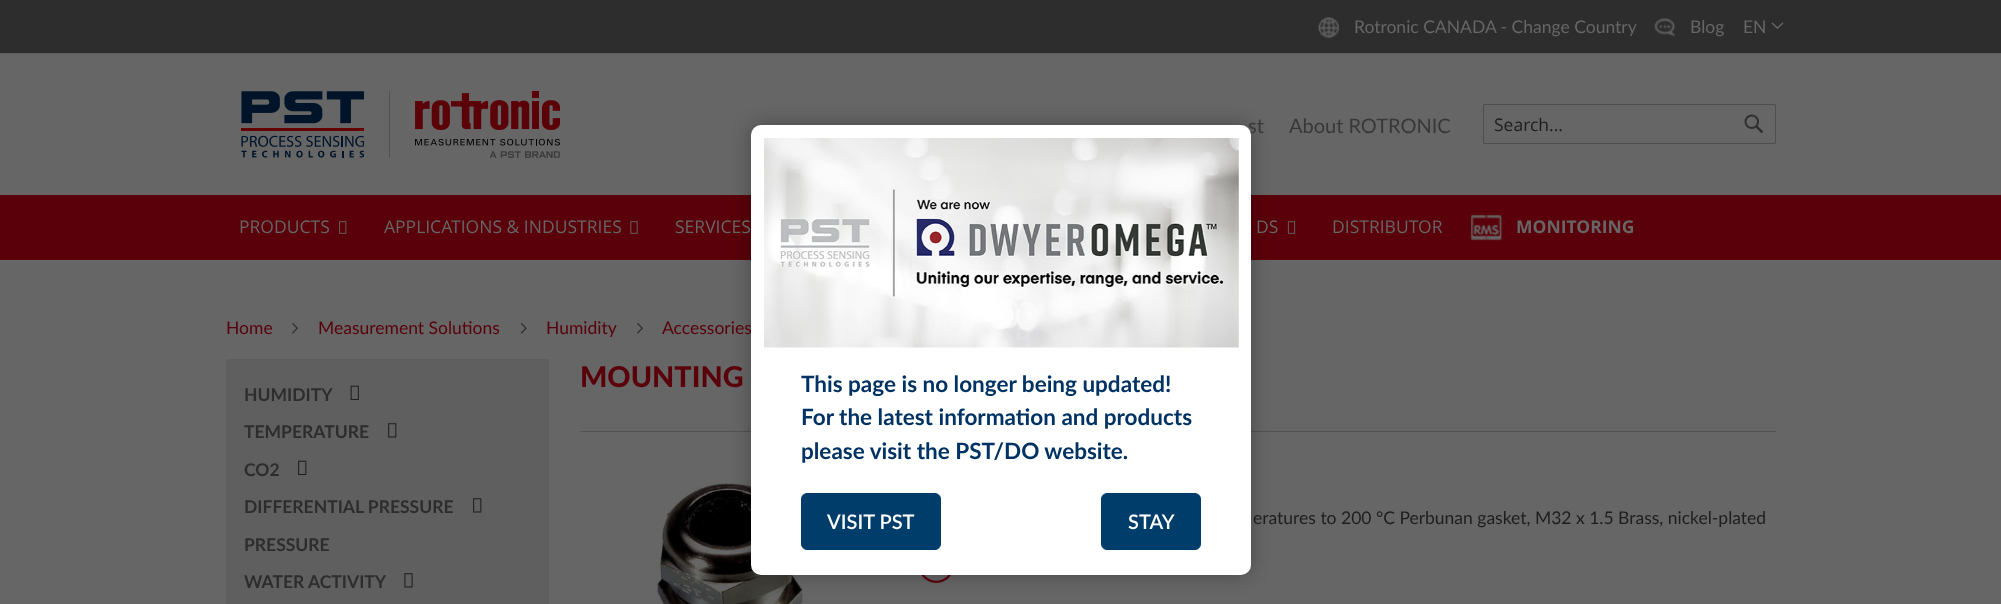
<svg xmlns="http://www.w3.org/2000/svg" width="2001" height="604" viewBox="0 0 2001 604">
  <rect width="100%" height="100%" fill="#666"/>
  <path d="M0 0h2001v53H0z" fill="#2c2d2c"/>
  <path d="M0 53h2001v1H0z" fill="#5d5d5d"/>
  <image x="1318" y="17" width="21" height="22" href="img/1.png"/>
  <image x="1654" y="18" width="22" height="19" href="img/2.png"/>
  <image x="1771" y="22" width="13" height="8" href="img/3.png"/>
  <path d="M389 91h1v67H389z" fill="#525252"/>
  <image x="241" y="91" width="123" height="67" href="img/4.png"/>
  <image x="415" y="91" width="145" height="67" href="img/5.png"/>
  <rect x="1483.5" y="104.5" width="292" height="39" rx="0.5" fill="none" stroke="#4e4e4e"/>
  <image x="1744" y="114" width="19" height="19" href="img/6.png"/>
  <path d="M0 195h2001v65H0z" fill="#5a000a"/>
  <image x="339" y="221" width="8" height="13" href="img/7.png"/>
  <image x="630" y="221" width="8" height="13" href="img/8.png"/>
  <image x="1287" y="221" width="9" height="13" href="img/9.png"/>
  <image x="1471" y="214" width="31" height="27" href="img/10.png"/>
  <image x="292" y="323" width="6" height="11" href="img/11.png"/>
  <image x="520" y="323" width="7" height="11" href="img/12.png"/>
  <image x="637" y="323" width="6" height="11" href="img/11.png"/>
  <path d="M226 359h323v245H226z" fill="#5f5f5f"/>
  <image x="350" y="385" width="9" height="15" href="img/13.png"/>
  <image x="388" y="423" width="9" height="15" href="img/14.png"/>
  <image x="298" y="460" width="9" height="15" href="img/15.png"/>
  <image x="473" y="498" width="9" height="15" href="img/14.png"/>
  <image x="404" y="573" width="9" height="15" href="img/16.png"/>
  <path d="M580 431h1196v1H580z" fill="#525252"/>
  <image x="656" y="482" width="147" height="122" href="img/17.png"/>
  <image x="921" y="575" width="30" height="8" href="img/18.png"/>
  <rect x="751" y="125" width="500" height="450" rx="10" fill="#0000004d" filter="blur(9.5px)"/>
  <g font-family="Lato" font-size="17.5" fill="#666">
    <text x="1354" y="33">Rotronic CANADA - Change Country</text>
    <text x="1690" y="33">Blog</text>
    <text x="1743" y="33">EN</text>
  </g>
  <g font-family="Lato" font-size="20" fill="#383837">
    <text x="1248" y="133">st</text>
    <text x="1289" y="133">About ROTRONIC</text>
  </g>
  <text x="1494" y="131" font-family="Open Sans" font-size="17.5" fill="#1e1e1e">Search...</text>
  <g font-family="Open Sans" font-size="17.5" fill="#666">
    <text x="239" y="233">PRODUCTS</text>
    <text x="384" y="233">APPLICATIONS &amp; INDUSTRIES</text>
    <text x="675" y="233">SERVICES</text>
    <text x="1256" y="233">DS</text>
    <text x="1332" y="233">DISTRIBUTOR</text>
  </g>
  <text x="1516" y="233" font-family="Open Sans" font-size="17.5" font-weight="bold" fill="#666">MONITORING</text>
  <g font-family="Lato" font-size="17.5" fill="#5a000a">
    <text x="226" y="334">Home</text>
    <text x="318" y="334">Measurement Solutions</text>
    <text x="546" y="334">Humidity</text>
    <text x="662" y="334">Accessories</text>
  </g>
  <g font-family="Lato" font-size="17.5" font-weight="bold" fill="#2d2d2d">
    <text x="244" y="401">HUMIDITY</text>
    <text x="244" y="438">TEMPERATURE</text>
    <text x="244" y="476">CO2</text>
    <text x="244" y="513">DIFFERENTIAL PRESSURE</text>
    <text x="244" y="551">PRESSURE</text>
    <text x="244" y="588">WATER ACTIVITY</text>
  </g>
  <text x="580" y="387" font-family="Lato" font-size="28.75" font-weight="900" fill="#5a000a">MOUNTING</text>
  <text x="1253" y="524" font-family="Lato" font-size="17.5" fill="#1e1e1e">eratures to 200 °C Perbunan gasket, M32 x 1.5 Brass, nickel-plated</text>
  <rect x="751" y="125" width="500" height="450" rx="10" fill="#fff"/>
  <image x="764" y="138" width="475" height="210" href="img/19.png"/>
  <g font-family="Lato" font-size="22.5" font-weight="bold" fill="#003263">
    <text x="801" y="392">This page is no longer being updated!</text>
    <text x="801" y="425">For the latest information and products</text>
    <text x="801" y="459">please visit the PST/DO website.</text>
  </g>
  <rect x="801.5" y="493.5" width="139" height="56" rx="5.5" fill="#003d6b" stroke="#003d6b"/>
  <text x="827" y="529" font-family="Lato" font-size="20" font-weight="600" fill="#fff">VISIT PST</text>
  <rect x="1101.5" y="493.5" width="99" height="56" rx="5.5" fill="#003d6b" stroke="#003d6b"/>
  <text x="1128" y="529" font-family="Lato" font-size="20" font-weight="600" fill="#fff">STAY</text>
</svg>
